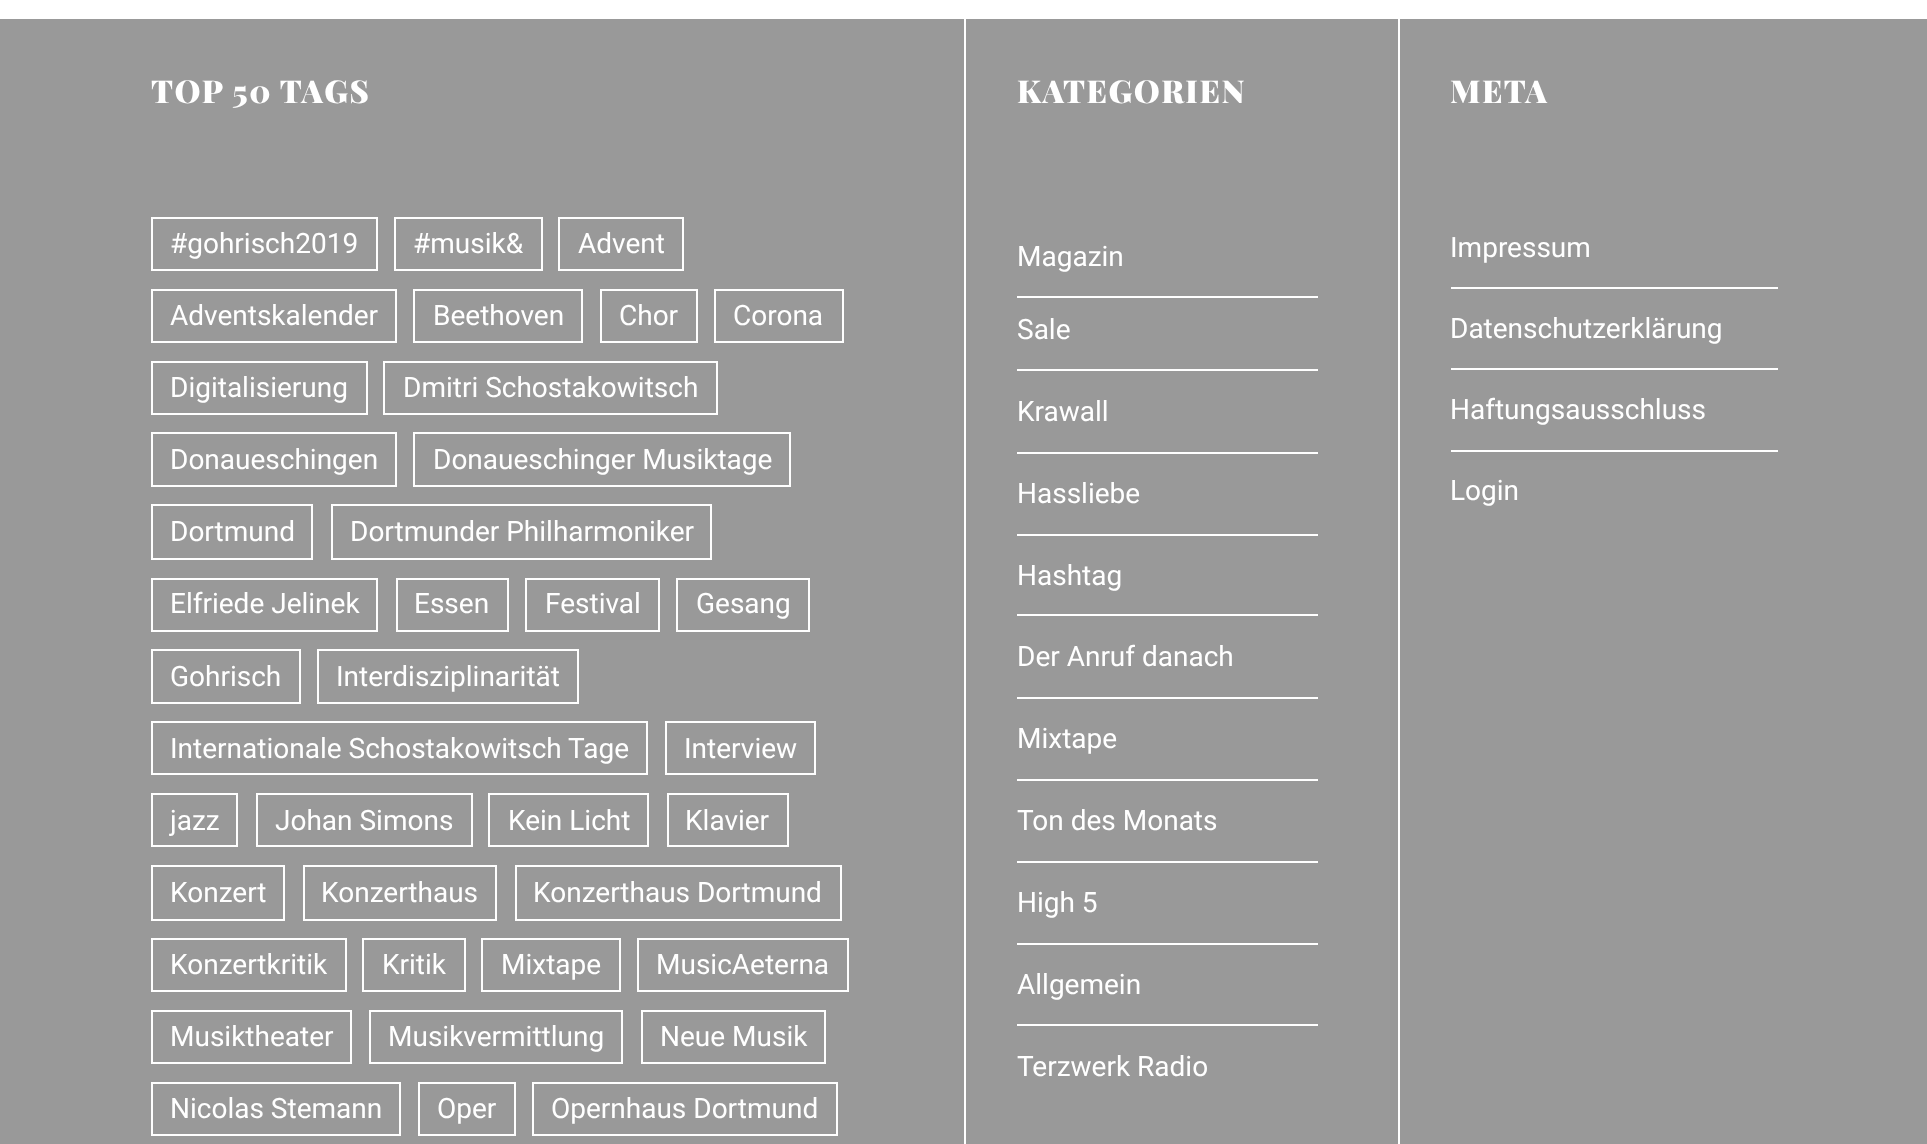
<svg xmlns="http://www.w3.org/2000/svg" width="1927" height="1144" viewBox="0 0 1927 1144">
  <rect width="100%" height="100%" fill="#fff"/>
  <path d="M0 19h1927v1125H0z" fill="#999"/>
  <path d="M152 218h225v52H152z" fill="none" stroke="#fff" stroke-width="2"/>
  <path d="M395 218h147v52H395z" fill="none" stroke="#fff" stroke-width="2"/>
  <path d="M559 218h124v52H559z" fill="none" stroke="#fff" stroke-width="2"/>
  <path d="M152 290h244v52H152z" fill="none" stroke="#fff" stroke-width="2"/>
  <path d="M414 290h168v52H414z" fill="none" stroke="#fff" stroke-width="2"/>
  <path d="M601 290h96v52H601z" fill="none" stroke="#fff" stroke-width="2"/>
  <path d="M715 290h128v52H715z" fill="none" stroke="#fff" stroke-width="2"/>
  <path d="M152 362h215v52H152z" fill="none" stroke="#fff" stroke-width="2"/>
  <path d="M384 362h333v52H384z" fill="none" stroke="#fff" stroke-width="2"/>
  <path d="M152 433h244v53H152z" fill="none" stroke="#fff" stroke-width="2"/>
  <path d="M414 433h376v53H414z" fill="none" stroke="#fff" stroke-width="2"/>
  <path d="M152 505h160v54H152z" fill="none" stroke="#fff" stroke-width="2"/>
  <path d="M332 505h379v54H332z" fill="none" stroke="#fff" stroke-width="2"/>
  <path d="M152 579h225v52H152z" fill="none" stroke="#fff" stroke-width="2"/>
  <path d="M397 579h111v52H397z" fill="none" stroke="#fff" stroke-width="2"/>
  <path d="M526 579h133v52H526z" fill="none" stroke="#fff" stroke-width="2"/>
  <path d="M677 579h132v52H677z" fill="none" stroke="#fff" stroke-width="2"/>
  <path d="M152 650h148v53H152z" fill="none" stroke="#fff" stroke-width="2"/>
  <path d="M318 650h260v53H318z" fill="none" stroke="#fff" stroke-width="2"/>
  <path d="M152 722h495v52H152z" fill="none" stroke="#fff" stroke-width="2"/>
  <path d="M666 722h149v52H666z" fill="none" stroke="#fff" stroke-width="2"/>
  <path d="M152 794h85v52H152z" fill="none" stroke="#fff" stroke-width="2"/>
  <path d="M257 794h215v52H257z" fill="none" stroke="#fff" stroke-width="2"/>
  <path d="M489 794h159v52H489z" fill="none" stroke="#fff" stroke-width="2"/>
  <path d="M668 794h120v52H668z" fill="none" stroke="#fff" stroke-width="2"/>
  <path d="M152 866h132v54H152z" fill="none" stroke="#fff" stroke-width="2"/>
  <path d="M304 866h192v54H304z" fill="none" stroke="#fff" stroke-width="2"/>
  <path d="M516 866h325v54H516z" fill="none" stroke="#fff" stroke-width="2"/>
  <path d="M152 939h194v52H152z" fill="none" stroke="#fff" stroke-width="2"/>
  <path d="M363 939h102v52H363z" fill="none" stroke="#fff" stroke-width="2"/>
  <path d="M482 939h138v52H482z" fill="none" stroke="#fff" stroke-width="2"/>
  <path d="M638 939h210v52H638z" fill="none" stroke="#fff" stroke-width="2"/>
  <path d="M152 1011h199v52H152z" fill="none" stroke="#fff" stroke-width="2"/>
  <path d="M370 1011h252v52H370z" fill="none" stroke="#fff" stroke-width="2"/>
  <path d="M642 1011h183v52H642z" fill="none" stroke="#fff" stroke-width="2"/>
  <path d="M152 1083h248v52H152z" fill="none" stroke="#fff" stroke-width="2"/>
  <path d="M419 1083h96v52H419z" fill="none" stroke="#fff" stroke-width="2"/>
  <path d="M533 1083h304v52H533z" fill="none" stroke="#fff" stroke-width="2"/>
  <path d="M964 19h2v1125H964z" fill="#fff"/>
  <path d="M1017 296h301v2H1017z" fill="#fff"/>
  <path d="M1017 369h301v2H1017z" fill="#fff"/>
  <path d="M1017 452h301v2H1017z" fill="#fff"/>
  <path d="M1017 534h301v2H1017z" fill="#fff"/>
  <path d="M1017 614h301v2H1017z" fill="#fff"/>
  <path d="M1017 697h301v2H1017z" fill="#fff"/>
  <path d="M1017 779h301v2H1017z" fill="#fff"/>
  <path d="M1017 861h301v2H1017z" fill="#fff"/>
  <path d="M1017 943h301v2H1017z" fill="#fff"/>
  <path d="M1017 1024h301v2H1017z" fill="#fff"/>
  <path d="M1398 19h2v1125H1398z" fill="#fff"/>
  <path d="M1451 287h327v2H1451z" fill="#fff"/>
  <path d="M1451 368h327v2H1451z" fill="#fff"/>
  <path d="M1451 450h327v2H1451z" fill="#fff"/>
  <text x="151" y="103" font-family="Playfair Display" font-size="31.5" font-weight="900" letter-spacing="1.5" fill="#fff">TOP 50 TAGS</text>
  <g font-family="Roboto" font-size="28" fill="#fff">
    <text x="170" y="253">#gohrisch2019</text>
    <text x="413" y="253">#musik&amp;</text>
    <text x="578" y="253">Advent</text>
    <text x="170" y="325">Adventskalender</text>
    <text x="433" y="325">Beethoven</text>
    <text x="619" y="325">Chor</text>
    <text x="733" y="325">Corona</text>
    <text x="170" y="397">Digitalisierung</text>
    <text x="403" y="397">Dmitri Schostakowitsch</text>
    <text x="170" y="469">Donaueschingen</text>
    <text x="433" y="469">Donaueschinger Musiktage</text>
    <text x="170" y="541">Dortmund</text>
    <text x="350" y="541">Dortmunder Philharmoniker</text>
    <text x="170" y="613">Elfriede Jelinek</text>
    <text x="414" y="613">Essen</text>
    <text x="545" y="613">Festival</text>
    <text x="696" y="613">Gesang</text>
    <text x="170" y="686">Gohrisch</text>
    <text x="336" y="686">Interdisziplinarität</text>
    <text x="170" y="758">Internationale Schostakowitsch Tage</text>
    <text x="684" y="758">Interview</text>
    <text x="170" y="830">jazz</text>
    <text x="275" y="830">Johan Simons</text>
    <text x="508" y="830">Kein Licht</text>
    <text x="685" y="830">Klavier</text>
    <text x="170" y="902">Konzert</text>
    <text x="321" y="902">Konzerthaus</text>
    <text x="533" y="902">Konzerthaus Dortmund</text>
    <text x="170" y="974">Konzertkritik</text>
    <text x="382" y="974">Kritik</text>
    <text x="501" y="974">Mixtape</text>
    <text x="656" y="974">MusicAeterna</text>
    <text x="170" y="1046">Musiktheater</text>
    <text x="388" y="1046">Musikvermittlung</text>
    <text x="660" y="1046">Neue Musik</text>
    <text x="170" y="1118">Nicolas Stemann</text>
    <text x="437" y="1118">Oper</text>
    <text x="551" y="1118">Opernhaus Dortmund</text>
  </g>
  <text x="1017" y="103" font-family="Playfair Display" font-size="31.5" font-weight="900" letter-spacing="1.5" fill="#fff">KATEGORIEN</text>
  <g font-family="Roboto" font-size="28" fill="#fff">
    <text x="1017" y="266">Magazin</text>
    <text x="1017" y="339">Sale</text>
    <text x="1017" y="421">Krawall</text>
    <text x="1017" y="503">Hassliebe</text>
    <text x="1017" y="585">Hashtag</text>
    <text x="1017" y="666">Der Anruf danach</text>
    <text x="1017" y="748">Mixtape</text>
    <text x="1017" y="830">Ton des Monats</text>
    <text x="1017" y="912">High 5</text>
    <text x="1017" y="994">Allgemein</text>
    <text x="1017" y="1076">Terzwerk Radio</text>
  </g>
  <text x="1450" y="103" font-family="Playfair Display" font-size="31.5" font-weight="900" letter-spacing="1.5" fill="#fff">META</text>
  <g font-family="Roboto" font-size="28" fill="#fff">
    <text x="1450" y="257">Impressum</text>
    <text x="1450" y="338">Datenschutzerklärung</text>
    <text x="1450" y="419">Haftungsausschluss</text>
    <text x="1450" y="500">Login</text>
  </g>
</svg>
